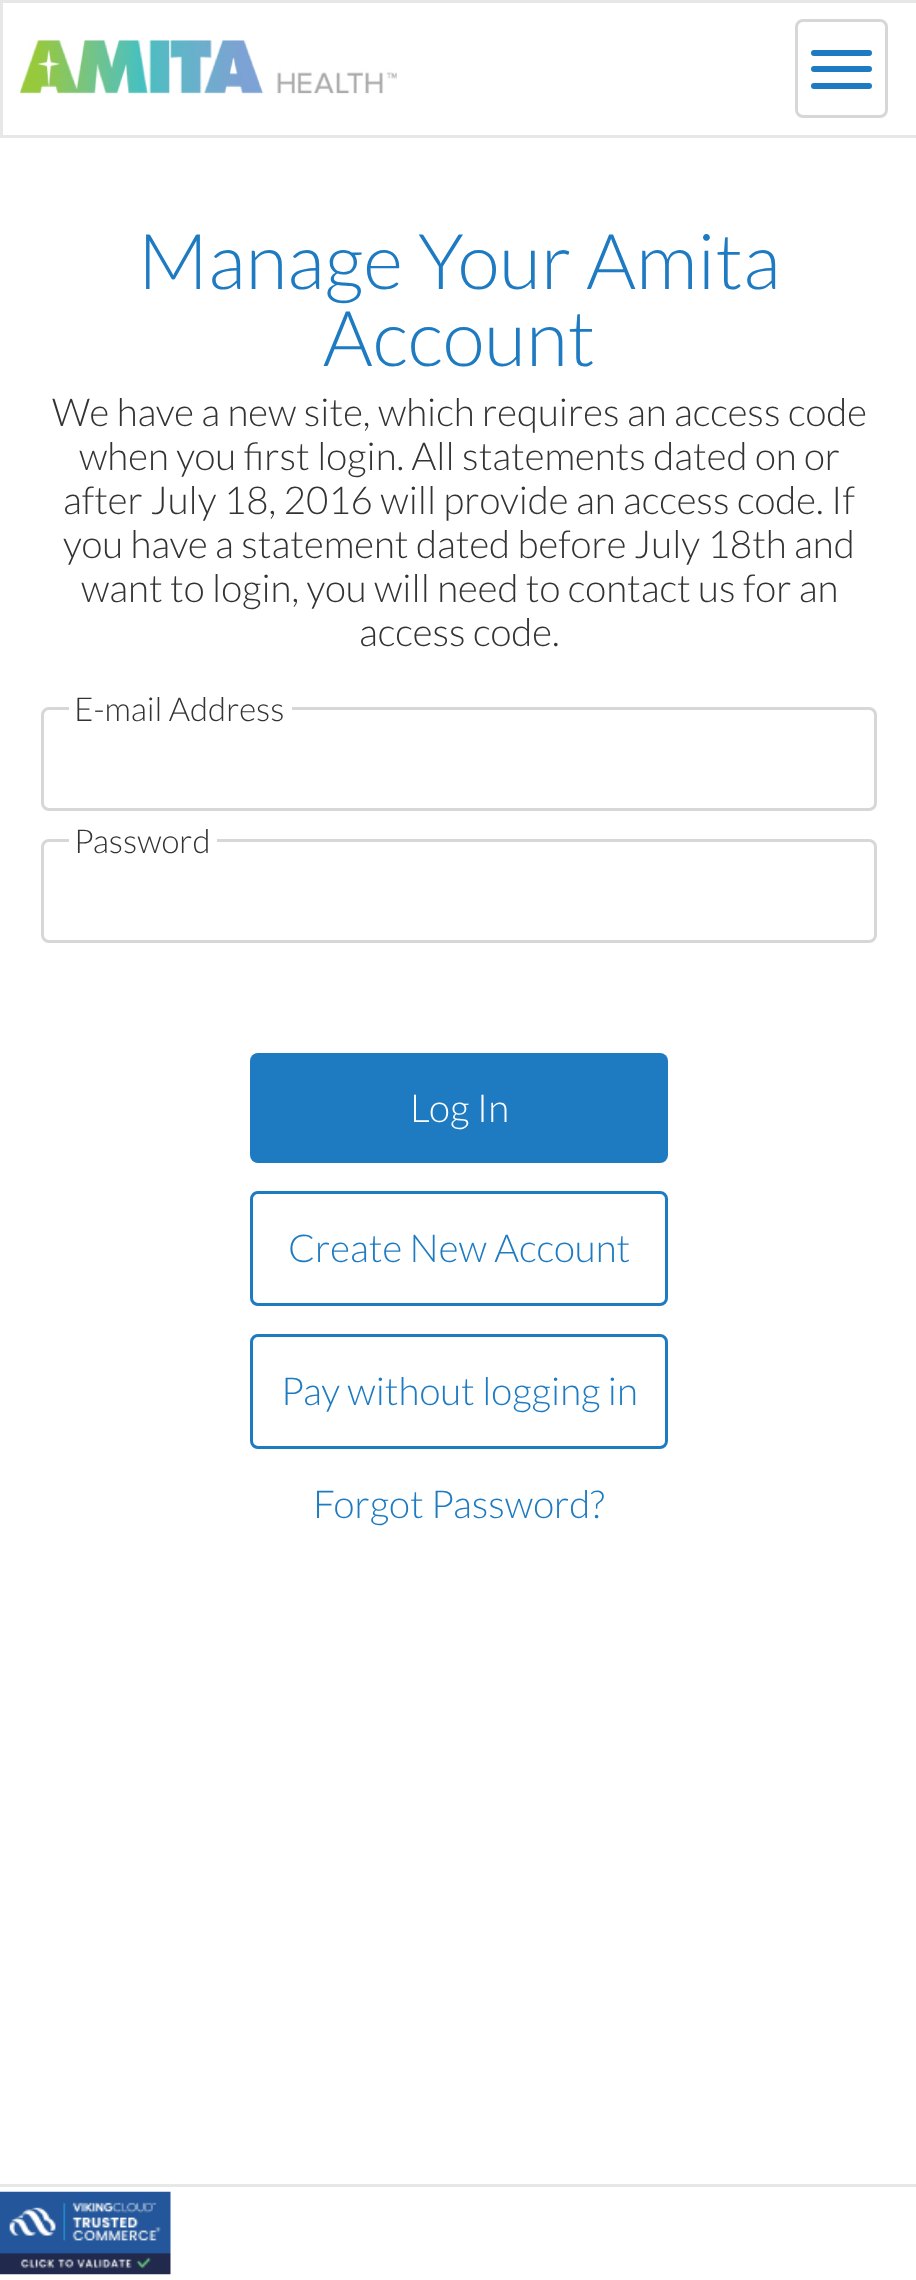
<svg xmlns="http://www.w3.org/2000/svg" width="916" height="2280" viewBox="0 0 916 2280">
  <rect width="100%" height="100%" fill="#fff"/>
  <path d="M1.5 1.5h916v135H1.5z" fill="none" stroke="#e7e7e7" stroke-width="3"/>
  <image x="20" y="40" width="377" height="54" href="img/1.png"/>
  <rect x="796.5" y="20.5" width="90" height="96" rx="6.5" fill="none" stroke="#d7d7d7" stroke-width="3"/>
  <rect x="811" y="50" width="61" height="6" rx="3" fill="#1e7bc2"/>
  <rect x="811" y="66" width="61" height="6" rx="3" fill="#1e7bc2"/>
  <rect x="811" y="83" width="61" height="6" rx="3" fill="#1e7bc2"/>
  <rect x="42.5" y="708.5" width="833" height="101" rx="6.5" fill="none" stroke="#d7d7d7" stroke-width="3"/>
  <path d="M69 707h223v3H69z" fill="#fff"/>
  <rect x="42.5" y="840.5" width="833" height="101" rx="6.5" fill="none" stroke="#d7d7d7" stroke-width="3"/>
  <path d="M69 839h148v3H69z" fill="#fff"/>
  <rect x="250" y="1053" width="418" height="110" rx="8" fill="#1e7bc2"/>
  <rect x="251.5" y="1192.5" width="415" height="112" rx="6.5" fill="none" stroke="#1e7bc2" stroke-width="3"/>
  <rect x="251.5" y="1335.5" width="415" height="112" rx="6.5" fill="none" stroke="#1e7bc2" stroke-width="3"/>
  <path d="M0 2184h916v3H0z" fill="#e7e7e7"/>
  <image x="0" y="2191" width="171" height="84" href="img/2.png"/>
  <g font-family="Lato" font-size="77" font-weight="300" fill="#1e7bc2">
    <text x="138" y="289">Manage Your Amita</text>
    <text x="323" y="366">Account</text>
  </g>
  <g font-family="Lato" font-size="38.5" font-weight="300" fill="#333">
    <text x="52" y="426">We have a new site, which requires an access code</text>
    <text x="79" y="470">when you first login. All statements dated on or</text>
    <text x="63" y="514">after July 18, 2016 will provide an access code. If</text>
    <text x="63" y="558">you have a statement dated before July 18th and</text>
    <text x="81" y="602">want to login, you will need to contact us for an</text>
    <text x="359" y="646">access code.</text>
  </g>
  <g font-family="Lato" font-size="33" font-weight="300" fill="#333">
    <text x="74" y="721">E-mail Address</text>
    <text x="74" y="853">Password</text>
  </g>
  <text x="410" y="1122" font-family="Lato" font-size="38.5" font-weight="300" fill="#fff">Log In</text>
  <g font-family="Lato" font-size="38.5" font-weight="300" fill="#1e7bc2">
    <text x="288" y="1262">Create New Account</text>
    <text x="281" y="1405">Pay without logging in</text>
    <text x="313" y="1518">Forgot Password?</text>
  </g>
</svg>
